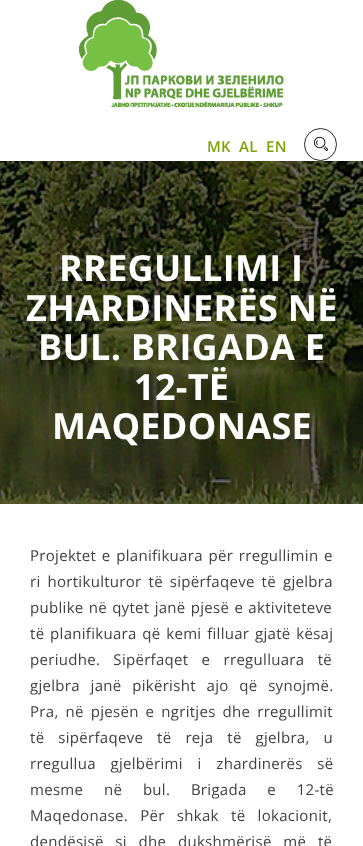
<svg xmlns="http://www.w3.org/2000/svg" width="363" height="846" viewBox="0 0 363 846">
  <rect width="100%" height="100%" fill="#fff"/>
  <image x="79" y="0" width="205" height="108" href="img/1.png"/>
  <circle cx="320.5" cy="144.5" r="16" fill="none" stroke="#2a2a2a"/>
  <image x="314" y="136" width="14" height="15" href="img/2.png"/>
  <image x="0" y="161" width="363" height="343" href="img/3.png"/>
  <g font-family="Open Sans" font-size="15" font-weight="600" letter-spacing="0.3" fill="#7fa409">
    <text x="207" y="152">MK</text>
    <text x="239" y="152">AL</text>
    <text x="266" y="152">EN</text>
  </g>
  <g font-family="Open Sans" font-size="36" font-weight="bold" letter-spacing="0.3" fill="#fff">
    <text x="59" y="281">RREGULLIMI I</text>
    <text x="26" y="321">ZHARDINERËS NË</text>
    <text x="38" y="360">BUL. BRIGADA E</text>
    <text x="134" y="400">12-TË</text>
    <text x="52" y="439">MAQEDONASE</text>
  </g>
  <g font-family="Open Sans" font-size="15" letter-spacing="0.3" fill="#424141">
    <text x="30" y="561" word-spacing="1.5">Projektet e planifikuara për rregullimin e</text>
    <text x="30" y="587" word-spacing="2.75">ri hortikulturor të sipërfaqeve të gjelbra</text>
    <text x="30" y="613" word-spacing="1">publike në qytet janë pjesë e aktiviteteve</text>
    <text x="30" y="639" word-spacing="1.5">të planifikuara që kemi filluar gjatë kësaj</text>
    <text x="30" y="665" word-spacing="9">periudhe. Sipërfaqet e rregulluara të</text>
    <text x="30" y="691" word-spacing="6.5">gjelbra janë pikërisht ajo që synojmë.</text>
    <text x="30" y="717" word-spacing="2.75">Pra, në pjesën e ngritjes dhe rregullimit</text>
    <text x="30" y="743" word-spacing="9.75">të sipërfaqeve të reja të gjelbra, u</text>
    <text x="30" y="769" word-spacing="10.5">rregullua gjelbërimi i zhardinerës së</text>
    <text x="30" y="795" word-spacing="16.5">mesme në bul. Brigada e 12-të</text>
    <text x="30" y="821" word-spacing="8">Maqedonase. Për shkak të lokacionit,</text>
    <text x="30" y="847" word-spacing="7.5">dendësisë si dhe dukshmërisë më të</text>
  </g>
</svg>
